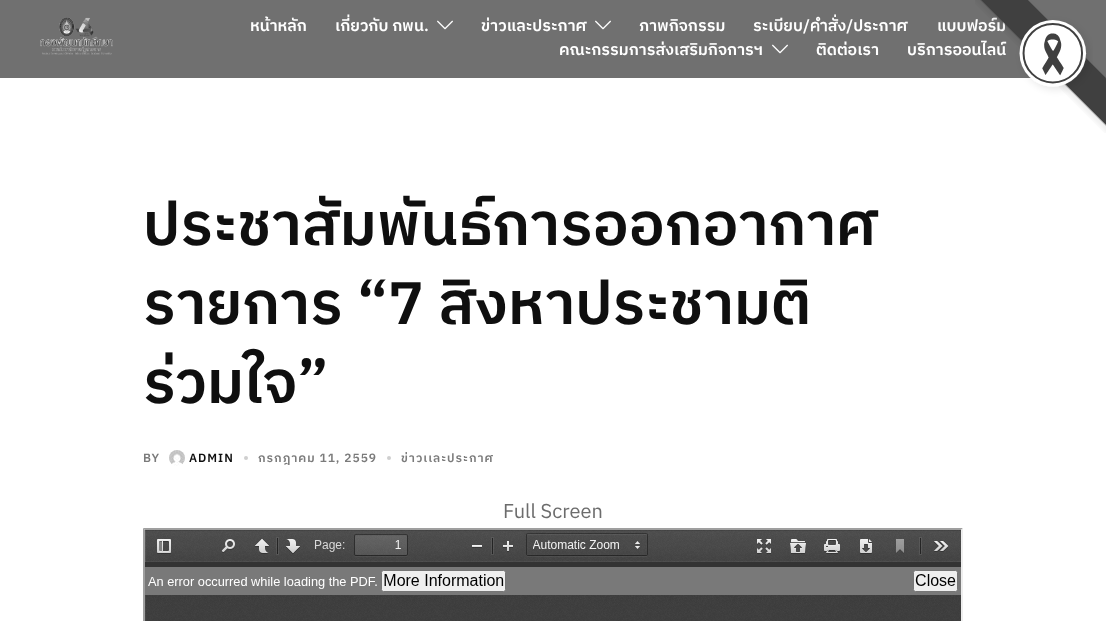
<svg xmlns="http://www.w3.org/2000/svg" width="1106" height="621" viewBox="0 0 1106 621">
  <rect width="100%" height="100%" fill="#fff"/>
  <path d="M0 0h1106v78H0z" fill="#707070"/>
  <image x="40" y="17" width="73" height="38" href="img/1.png"/>
  <image x="437" y="20" width="16" height="10" href="img/2.png"/>
  <image x="595" y="20" width="16" height="10" href="img/2.png"/>
  <image x="772" y="44" width="16" height="10" href="img/2.png"/>
  <image x="169" y="450" width="16" height="16" href="img/3.png"/>
  <circle cx="246" cy="458" r="2" fill="#cfcfcf"/>
  <circle cx="389" cy="458" r="2" fill="#cfcfcf"/>
  <path d="M143 528H963L961 530H145Z" fill="#9f9f9f"/>
  <path d="M143 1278V528L145 530V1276Z" fill="#9f9f9f"/>
  <image x="145" y="530" width="816" height="91" href="img/4.png"/>
  <path d="M963 528V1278L961 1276V530Z" fill="#eee"/>
  <g font-family="IBM Plex Sans Thai" font-size="16" font-weight="600" fill="#fff">
    <text x="250" y="31">หน้าหลัก</text>
    <text x="335" y="31">เกี่ยวกับ กพน.</text>
    <text x="481" y="31">ข่าวและประกาศ</text>
    <text x="639" y="31">ภาพกิจกรรม</text>
    <text x="753" y="31">ระเบียบ/คำสั่ง/ประกาศ</text>
    <text x="937" y="31">แบบฟอร์ม</text>
    <text x="559" y="55">คณะกรรมการส่งเสริมกิจการฯ</text>
    <text x="816" y="55">ติดต่อเรา</text>
    <text x="907" y="55">บริการออนไลน์</text>
  </g>
  <g font-family="IBM Plex Sans Thai" font-size="60" font-weight="600" fill="#0f0f0f">
    <text x="143" y="245">ประชาสัมพันธ์การออกอากาศ</text>
    <text x="143" y="324">รายการ “7 สิงหาประชามติ</text>
    <text x="143" y="403">ร่วมใจ”</text>
  </g>
  <text x="143" y="462" font-family="IBM Plex Sans Thai" font-size="12" font-weight="600" letter-spacing="1" fill="#7b7b7b">BY</text>
  <text x="189" y="462" font-family="IBM Plex Sans Thai" font-size="12" font-weight="600" letter-spacing="1" fill="#0f0f0f">ADMIN</text>
  <g font-family="IBM Plex Sans Thai" font-size="12" font-weight="600" letter-spacing="1" fill="#7b7b7b">
    <text x="258" y="462">กรกฎาคม 11, 2559</text>
    <text x="401" y="462">ข่าวเเละประกาศ</text>
  </g>
  <text x="503" y="518" font-family="IBM Plex Sans Thai" font-size="20" fill="#6c6c6c">Full Screen</text>
  <image x="975" y="0" width="131" height="133" href="img/5.png"/>
</svg>
